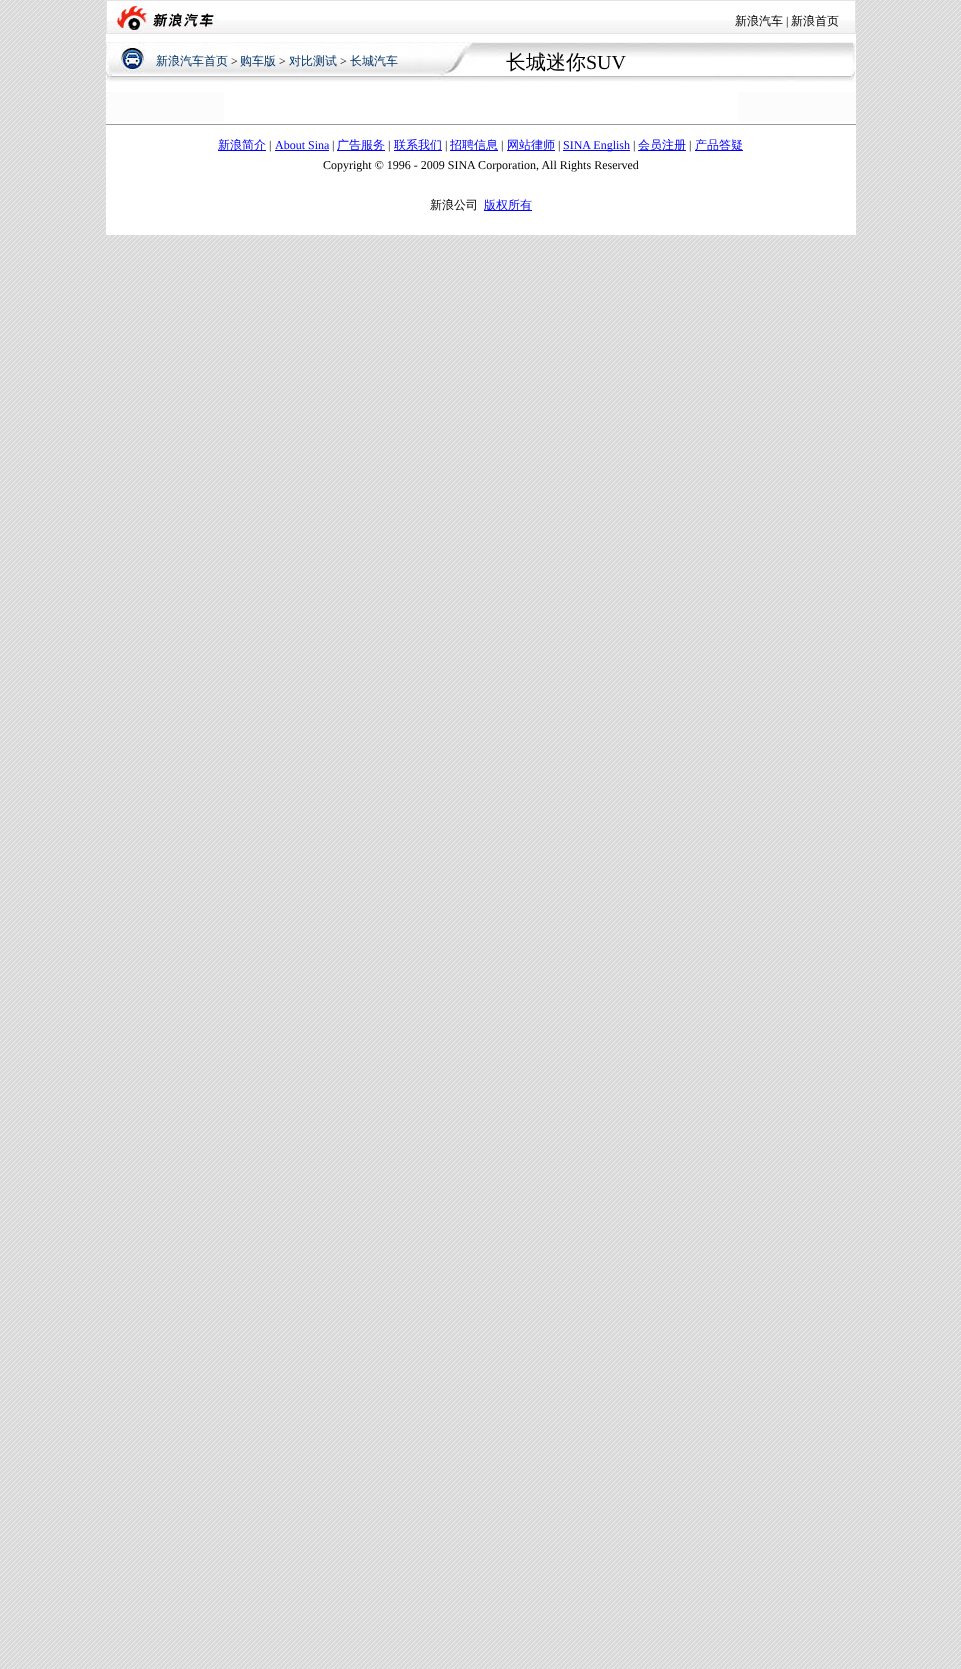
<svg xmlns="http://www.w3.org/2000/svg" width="961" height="1669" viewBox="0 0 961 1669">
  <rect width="100%" height="100%" fill="#fff"/>
  <image x="0" y="0" width="961" height="1669" href="img/1.png"/>
  <path d="M106 1h750v234H106z" fill="#fff"/>
  <image x="217" y="20" width="638" height="13" href="img/2.png"/>
  <path d="M106.5 0.5h749v33H106.5z" fill="none" stroke="#e4e4e4"/>
  <image x="107" y="1" width="110" height="32" href="img/3.png"/>
  <path d="M217 18h2v2H217z" fill="#f8fffe"/>
  <image x="106" y="42" width="750" height="40" href="img/4.png"/>
  <path d="M106 92h750v30H106z" fill="#fcfcfc"/>
  <path d="M224 92h514v30H224z" fill="#fff"/>
  <path d="M106 124h750v1H106z" fill="#999"/>
  <path d="M218 150h48v1H218z" fill="#00f"/>
  <path d="M275 150h54v1H275z" fill="#00f"/>
  <path d="M337 150h48v1H337z" fill="#00f"/>
  <path d="M394 150h48v1H394z" fill="#00f"/>
  <path d="M450 150h48v1H450z" fill="#00f"/>
  <path d="M507 150h48v1H507z" fill="#00f"/>
  <path d="M563 150h67v1H563z" fill="#00f"/>
  <path d="M638 150h48v1H638z" fill="#00f"/>
  <path d="M695 150h48v1H695z" fill="#00f"/>
  <path d="M484 210h48v1H484z" fill="#00f"/>
  <text x="735" y="25" font-family="WenQuanYi Zen Hei" font-size="12" font-weight="500" fill="#000">新浪汽车</text>
  <text x="786" y="25" font-family="Liberation Serif" font-size="12" fill="#000">|</text>
  <text x="791" y="25" font-family="WenQuanYi Zen Hei" font-size="12" font-weight="500" fill="#000">新浪首页</text>
  <text x="156" y="65" font-family="WenQuanYi Zen Hei" font-size="12" font-weight="500" fill="#036">新浪汽车首页</text>
  <text x="231" y="65" font-family="Liberation Serif" font-size="12" fill="#000">&gt;</text>
  <text x="240" y="65" font-family="WenQuanYi Zen Hei" font-size="12" font-weight="500" fill="#036">购车版</text>
  <text x="279" y="65" font-family="Liberation Serif" font-size="12" fill="#000">&gt;</text>
  <text x="289" y="65" font-family="WenQuanYi Zen Hei" font-size="12" font-weight="500" fill="#036">对比测试</text>
  <text x="340" y="65" font-family="Liberation Serif" font-size="12" fill="#000">&gt;</text>
  <text x="350" y="65" font-family="WenQuanYi Zen Hei" font-size="12" font-weight="500" fill="#036">长城汽车</text>
  <text x="506" y="69" font-family="WenQuanYi Zen Hei" font-size="20" font-weight="500" fill="#000">长城迷你</text>
  <text x="586" y="69" font-family="Liberation Serif" font-size="20" fill="#000">SUV</text>
  <text x="218" y="149" font-family="WenQuanYi Zen Hei" font-size="12" font-weight="500" fill="#00f">新浪简介</text>
  <text x="269" y="149" font-family="Liberation Serif" font-size="12" fill="#000">|</text>
  <text x="275" y="149" font-family="Liberation Serif" font-size="12" fill="#00f">About Sina</text>
  <text x="332" y="149" font-family="Liberation Serif" font-size="12" fill="#000">|</text>
  <text x="337" y="149" font-family="WenQuanYi Zen Hei" font-size="12" font-weight="500" fill="#00f">广告服务</text>
  <text x="388" y="149" font-family="Liberation Serif" font-size="12" fill="#000">|</text>
  <text x="394" y="149" font-family="WenQuanYi Zen Hei" font-size="12" font-weight="500" fill="#00f">联系我们</text>
  <text x="445" y="149" font-family="Liberation Serif" font-size="12" fill="#000">|</text>
  <text x="450" y="149" font-family="WenQuanYi Zen Hei" font-size="12" font-weight="500" fill="#00f">招聘信息</text>
  <text x="501" y="149" font-family="Liberation Serif" font-size="12" fill="#000">|</text>
  <text x="507" y="149" font-family="WenQuanYi Zen Hei" font-size="12" font-weight="500" fill="#00f">网站律师</text>
  <text x="558" y="149" font-family="Liberation Serif" font-size="12" fill="#000">|</text>
  <text x="563" y="149" font-family="Liberation Serif" font-size="12" fill="#00f">SINA English</text>
  <text x="633" y="149" font-family="Liberation Serif" font-size="12" fill="#000">|</text>
  <text x="638" y="149" font-family="WenQuanYi Zen Hei" font-size="12" font-weight="500" fill="#00f">会员注册</text>
  <text x="689" y="149" font-family="Liberation Serif" font-size="12" fill="#000">|</text>
  <text x="695" y="149" font-family="WenQuanYi Zen Hei" font-size="12" font-weight="500" fill="#00f">产品答疑</text>
  <text x="323" y="169" font-family="Liberation Serif" font-size="12" fill="#000">Copyright © 1996 - 2009 SINA Corporation, All Rights Reserved</text>
  <text x="430" y="209" font-family="WenQuanYi Zen Hei" font-size="12" font-weight="500" fill="#000">新浪公司</text>
  <text x="484" y="209" font-family="WenQuanYi Zen Hei" font-size="12" font-weight="500" fill="#00f">版权所有</text>
</svg>
